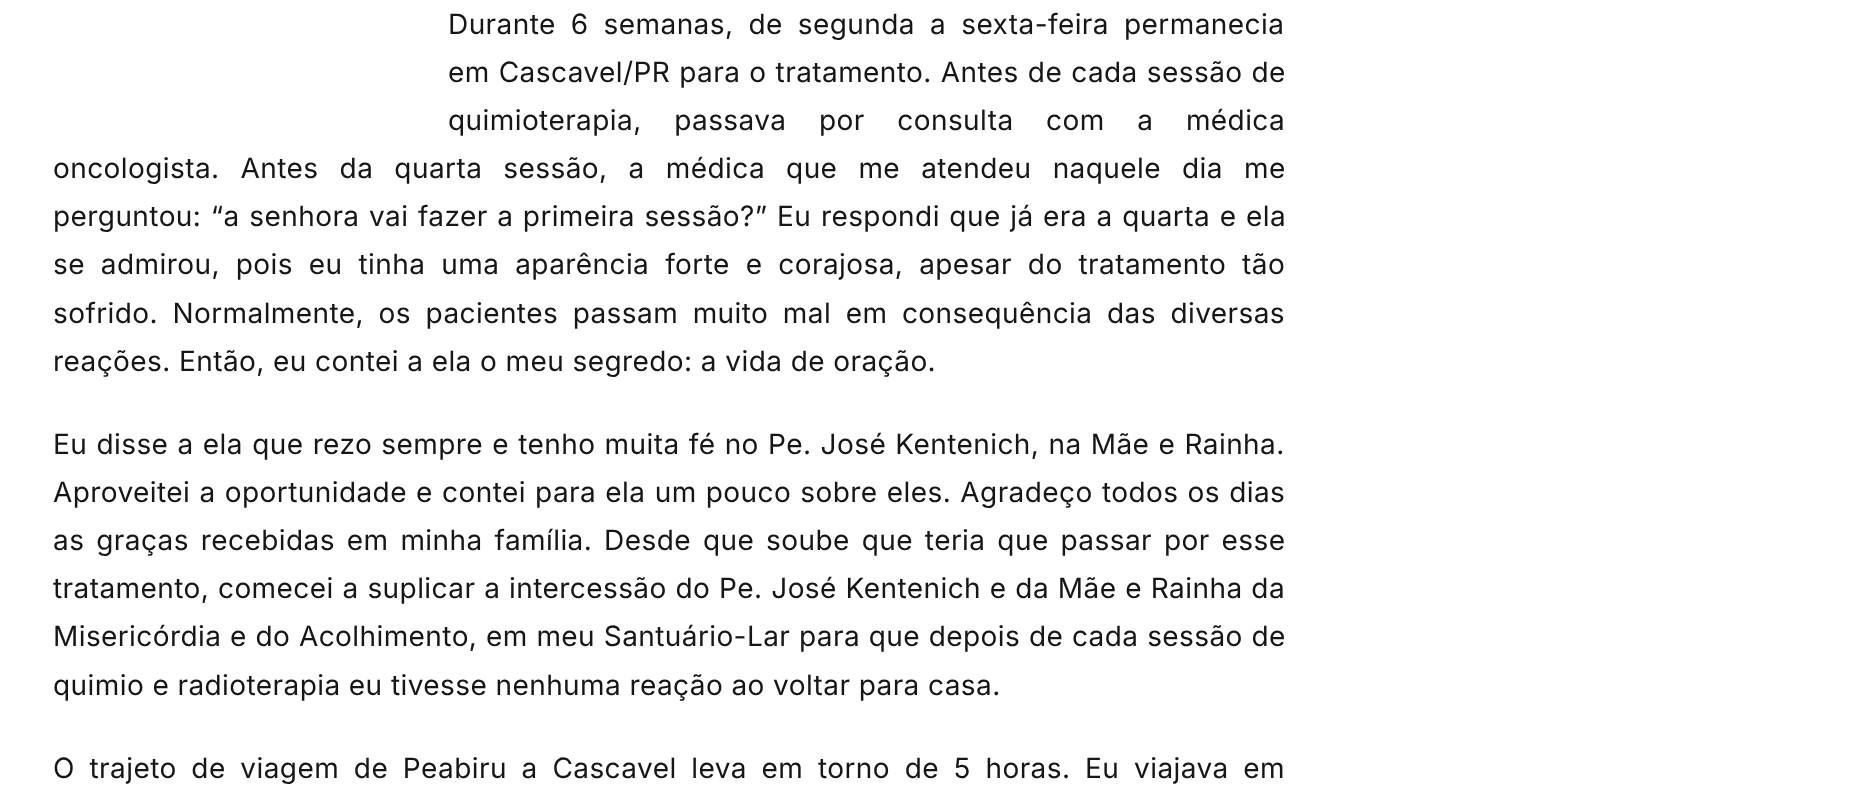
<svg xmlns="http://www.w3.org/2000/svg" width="1864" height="807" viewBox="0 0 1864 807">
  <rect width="100%" height="100%" fill="#fff"/>
  <g font-family="Inter" font-size="28" letter-spacing="0.42" fill="#141617">
    <text x="448" y="34" word-spacing="6.75">Durante 6 semanas, de segunda a sexta-feira permanecia</text>
    <text x="448" y="82" word-spacing="0.75">em Cascavel/PR para o tratamento. Antes de cada sessão de</text>
    <text x="448" y="130" word-spacing="24.25">quimioterapia, passava por consulta com a médica</text>
    <text x="53" y="178" word-spacing="12.75">oncologista. Antes da quarta sessão, a médica que me atendeu naquele dia me</text>
    <text x="53" y="226" word-spacing="1.25">perguntou: “a senhora vai fazer a primeira sessão?” Eu respondi que já era a quarta e ela</text>
    <text x="53" y="274" word-spacing="7.6">se admirou, pois eu tinha uma aparência forte e corajosa, apesar do tratamento tão</text>
    <text x="53" y="323" word-spacing="6.25">sofrido. Normalmente, os pacientes passam muito mal em consequência das diversas</text>
    <text x="53" y="371">reações. Então, eu contei a ela o meu segredo: a vida de oração.</text>
    <text x="53" y="454" word-spacing="0.9">Eu disse a ela que rezo sempre e tenho muita fé no Pe. José Kentenich, na Mãe e Rainha.</text>
    <text x="53" y="502" word-spacing="0.9">Aproveitei a oportunidade e contei para ela um pouco sobre eles. Agradeço todos os dias</text>
    <text x="53" y="550" word-spacing="3.6">as graças recebidas em minha família. Desde que soube que teria que passar por esse</text>
    <text x="53" y="598" word-spacing="0.5">tratamento, comecei a suplicar a intercessão do Pe. José Kentenich e da Mãe e Rainha da</text>
    <text x="53" y="646" word-spacing="0.4">Misericórdia e do Acolhimento, em meu Santuário-Lar para que depois de cada sessão de</text>
    <text x="53" y="695">quimio e radioterapia eu tivesse nenhuma reação ao voltar para casa.</text>
    <text x="53" y="778" word-spacing="6.4">O trajeto de viagem de Peabiru a Cascavel leva em torno de 5 horas. Eu viajava em</text>
  </g>
</svg>
